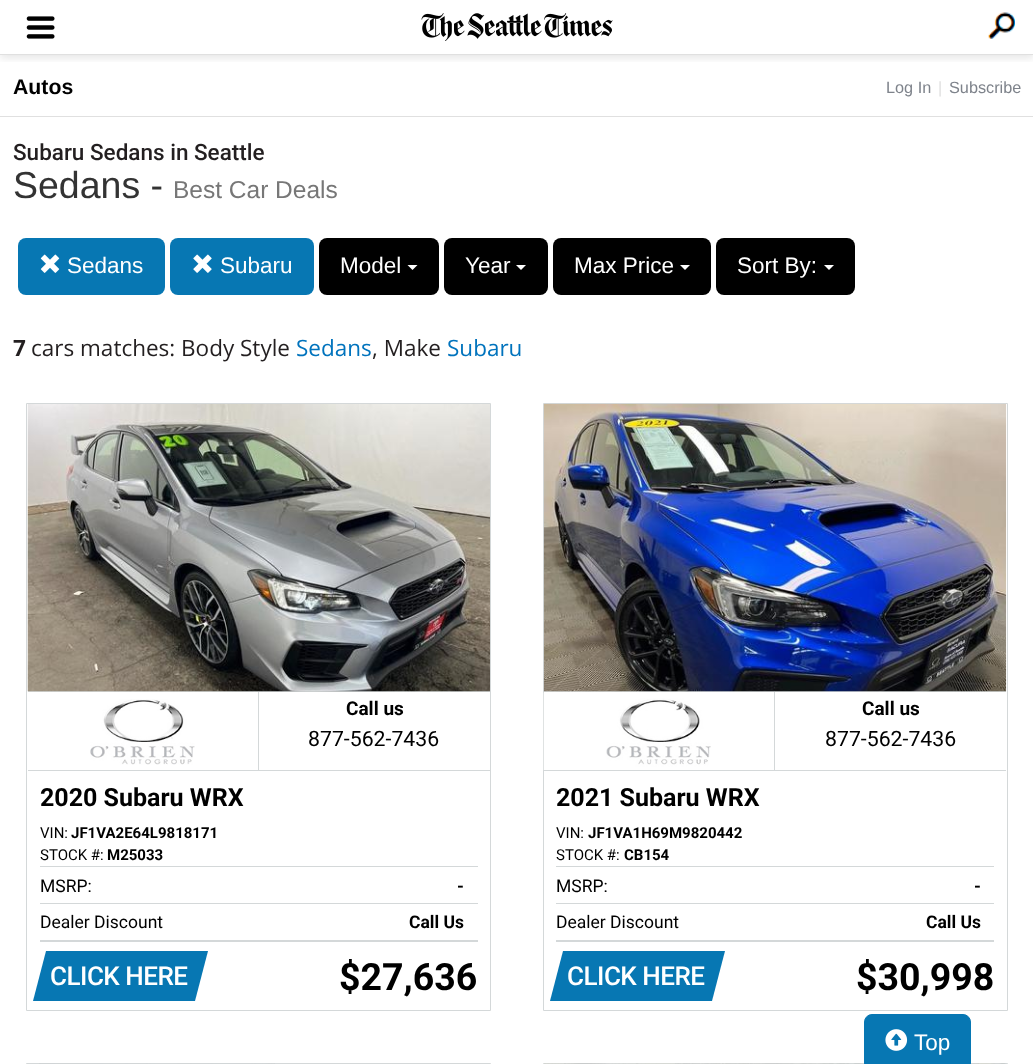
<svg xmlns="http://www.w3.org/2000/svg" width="1033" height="1064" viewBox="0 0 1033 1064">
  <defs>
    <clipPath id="clip1"><path d="M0 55h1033v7H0z"/></clipPath>
  </defs>
  <rect width="100%" height="100%" fill="#fff"/>
  <g clip-path="url(#clip1)">
    <path d="M0 3h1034v55H0z" fill="#0000001a" filter="blur(4.5px)"/>
  </g>
  <path d="M0 54h1033v1H0z" fill="#e0e0e0"/>
  <image x="26" y="16" width="29" height="23" href="img/1.png"/>
  <image x="421" y="13" width="192" height="28" href="img/2.png"/>
  <image x="988" y="12" width="27" height="27" href="img/3.png"/>
  <path d="M0 116h1033v1H0z" fill="#e0e0e0"/>
  <rect x="18" y="238" width="147" height="57" rx="8" fill="#0777b3"/>
  <image x="40" y="254" width="20" height="19" href="img/4.png"/>
  <rect x="170" y="238" width="144" height="57" rx="8" fill="#0777b3"/>
  <image x="193" y="254" width="19" height="19" href="img/5.png"/>
  <rect x="319" y="238" width="120" height="57" rx="8" fill="#000"/>
  <path d="M407.5 265H417.5L412.5 270Z" fill="#fff"/>
  <rect x="444" y="238" width="104" height="57" rx="8" fill="#000"/>
  <path d="M516 265H526L521 270Z" fill="#fff"/>
  <rect x="553" y="238" width="158" height="57" rx="8" fill="#000"/>
  <path d="M680 265H690L685 270Z" fill="#fff"/>
  <rect x="716" y="238" width="139" height="57" rx="8" fill="#000"/>
  <path d="M824 265H834L829 270Z" fill="#fff"/>
  <path d="M26.5 403.5h464v607H26.5z" fill="none" stroke="#d4d8d9"/>
  <path d="M28 691h462v1H28z" fill="#d4d8d9"/>
  <path d="M258 691h1v80H258z" fill="#d4d8d9"/>
  <image x="27" y="404" width="463" height="288" href="img/6.png"/>
  <path d="M28 770h462v1H28z" fill="#d4d8d9"/>
  <image x="90" y="699" width="105" height="66" href="img/7.png"/>
  <path d="M40 866h438v1H40z" fill="#d4d8d9"/>
  <path d="M40 903h438v1H40z" fill="#d4d8d9"/>
  <path d="M40 940h438v2H40z" fill="#d4d8d9"/>
  <path d="M46 951H208L195 1001H33Z" fill="#0777b3"/>
  <path d="M543.5 403.5h464v607H543.5z" fill="none" stroke="#d4d8d9"/>
  <path d="M544 691h462v1H544z" fill="#d4d8d9"/>
  <path d="M774 691h1v80H774z" fill="#d4d8d9"/>
  <image x="543" y="403" width="464" height="289" href="img/8.png"/>
  <path d="M544 770h462v1H544z" fill="#d4d8d9"/>
  <image x="543" y="692" width="168" height="78" href="img/9.png"/>
  <path d="M556 866h438v1H556z" fill="#d4d8d9"/>
  <path d="M556 903h438v1H556z" fill="#d4d8d9"/>
  <path d="M556 940h438v2H556z" fill="#d4d8d9"/>
  <path d="M563 951H725L712 1001H550Z" fill="#0777b3"/>
  <path d="M26.5 1063.5h464v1H26.5z" fill="none" stroke="#d4d8d9"/>
  <image x="39" y="1063" width="236" height="1" href="img/10.png"/>
  <path d="M543.5 1063.5h464v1H543.5z" fill="none" stroke="#d4d8d9"/>
  <image x="544" y="1063" width="462" height="1" href="img/11.png"/>
  <rect x="864.5" y="1014.5" width="106" height="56" rx="7.5" fill="#0777b3" stroke="#0777b3"/>
  <image x="885" y="1029" width="23" height="22" href="img/12.png"/>
  <text x="13" y="94" font-family="Liberation Sans" font-size="21.25" font-weight="bold" fill="#000">Autos</text>
  <text x="886" y="93" font-family="Liberation Sans" font-size="16.25" fill="#7e838b">Log In</text>
  <text x="938" y="93" font-family="Liberation Sans" font-size="16.25" fill="#e0e0e0">|</text>
  <text x="949" y="93" font-family="Liberation Sans" font-size="16.25" fill="#7e838b">Subscribe</text>
  <text x="13" y="160" font-family="Roboto" font-size="22.5" font-weight="500" fill="#231f20">Subaru Sedans in Seattle</text>
  <text x="13" y="198" font-family="Liberation Sans" font-size="37.5" fill="#333">Sedans -</text>
  <text x="173" y="198" font-family="Liberation Sans" font-size="24.5" fill="#777">Best Car Deals</text>
  <g font-family="Liberation Sans" font-size="22.5" fill="#fff">
    <text x="67" y="273">Sedans</text>
    <text x="220" y="273">Subaru</text>
    <text x="340" y="273">Model</text>
    <text x="465" y="273">Year</text>
    <text x="574" y="273">Max Price</text>
    <text x="737" y="273">Sort By:</text>
  </g>
  <text x="13" y="356" font-family="Open Sans" font-size="22.5" font-weight="bold" fill="#231f20">7</text>
  <text x="31" y="356" font-family="Open Sans" font-size="22.5" fill="#231f20">cars matches: Body Style</text>
  <text x="296" y="356" font-family="Open Sans" font-size="22.5" fill="#0073bd">Sedans</text>
  <text x="372" y="356" font-family="Open Sans" font-size="22.5" fill="#231f20">, Make</text>
  <text x="447" y="356" font-family="Open Sans" font-size="22.5" fill="#0073bd">Subaru</text>
  <text x="346" y="715" font-family="Roboto" font-size="19" font-weight="bold" fill="#000">Call us</text>
  <text x="308" y="746" font-family="Roboto" font-size="21.25" fill="#000">877-562-7436</text>
  <text x="40" y="806" font-family="Roboto" font-size="25" font-weight="bold" fill="#000">2020 Subaru WRX</text>
  <text x="40" y="838" font-family="Roboto" font-size="15" fill="#000">VIN:</text>
  <text x="71" y="838" font-family="Roboto" font-size="15" font-weight="bold" fill="#000">JF1VA2E64L9818171</text>
  <text x="40" y="860" font-family="Roboto" font-size="15" fill="#000">STOCK #:</text>
  <text x="107" y="860" font-family="Roboto" font-size="15" font-weight="bold" fill="#000">M25033</text>
  <text x="40" y="892" font-family="Roboto" font-size="17.5" fill="#000">MSRP:</text>
  <text x="457" y="892" font-family="Roboto" font-size="17.5" font-weight="bold" fill="#000">-</text>
  <text x="40" y="928" font-family="Roboto" font-size="17.5" fill="#000">Dealer Discount</text>
  <text x="409" y="928" font-family="Roboto" font-size="17.5" font-weight="bold" fill="#000">Call Us</text>
  <text x="50" y="985" font-family="Roboto" font-size="26" font-weight="500" letter-spacing="-0.5" fill="#fff">CLICK HERE</text>
  <text x="339" y="990" font-family="Roboto" font-size="37.5" font-weight="bold" fill="#000">$27,636</text>
  <text x="862" y="715" font-family="Roboto" font-size="19" font-weight="bold" fill="#000">Call us</text>
  <text x="825" y="746" font-family="Roboto" font-size="21.25" fill="#000">877-562-7436</text>
  <text x="556" y="806" font-family="Roboto" font-size="25" font-weight="bold" fill="#000">2021 Subaru WRX</text>
  <text x="556" y="838" font-family="Roboto" font-size="15" fill="#000">VIN:</text>
  <text x="588" y="838" font-family="Roboto" font-size="15" font-weight="bold" fill="#000">JF1VA1H69M9820442</text>
  <text x="556" y="860" font-family="Roboto" font-size="15" fill="#000">STOCK #:</text>
  <text x="624" y="860" font-family="Roboto" font-size="15" font-weight="bold" fill="#000">CB154</text>
  <text x="556" y="892" font-family="Roboto" font-size="17.5" fill="#000">MSRP:</text>
  <text x="974" y="892" font-family="Roboto" font-size="17.5" font-weight="bold" fill="#000">-</text>
  <text x="556" y="928" font-family="Roboto" font-size="17.5" fill="#000">Dealer Discount</text>
  <text x="926" y="928" font-family="Roboto" font-size="17.5" font-weight="bold" fill="#000">Call Us</text>
  <text x="567" y="985" font-family="Roboto" font-size="26" font-weight="500" letter-spacing="-0.5" fill="#fff">CLICK HERE</text>
  <text x="856" y="990" font-family="Roboto" font-size="37.5" font-weight="bold" fill="#000">$30,998</text>
  <text x="914" y="1050" font-family="Liberation Sans" font-size="22.5" fill="#fff">Top</text>
</svg>
